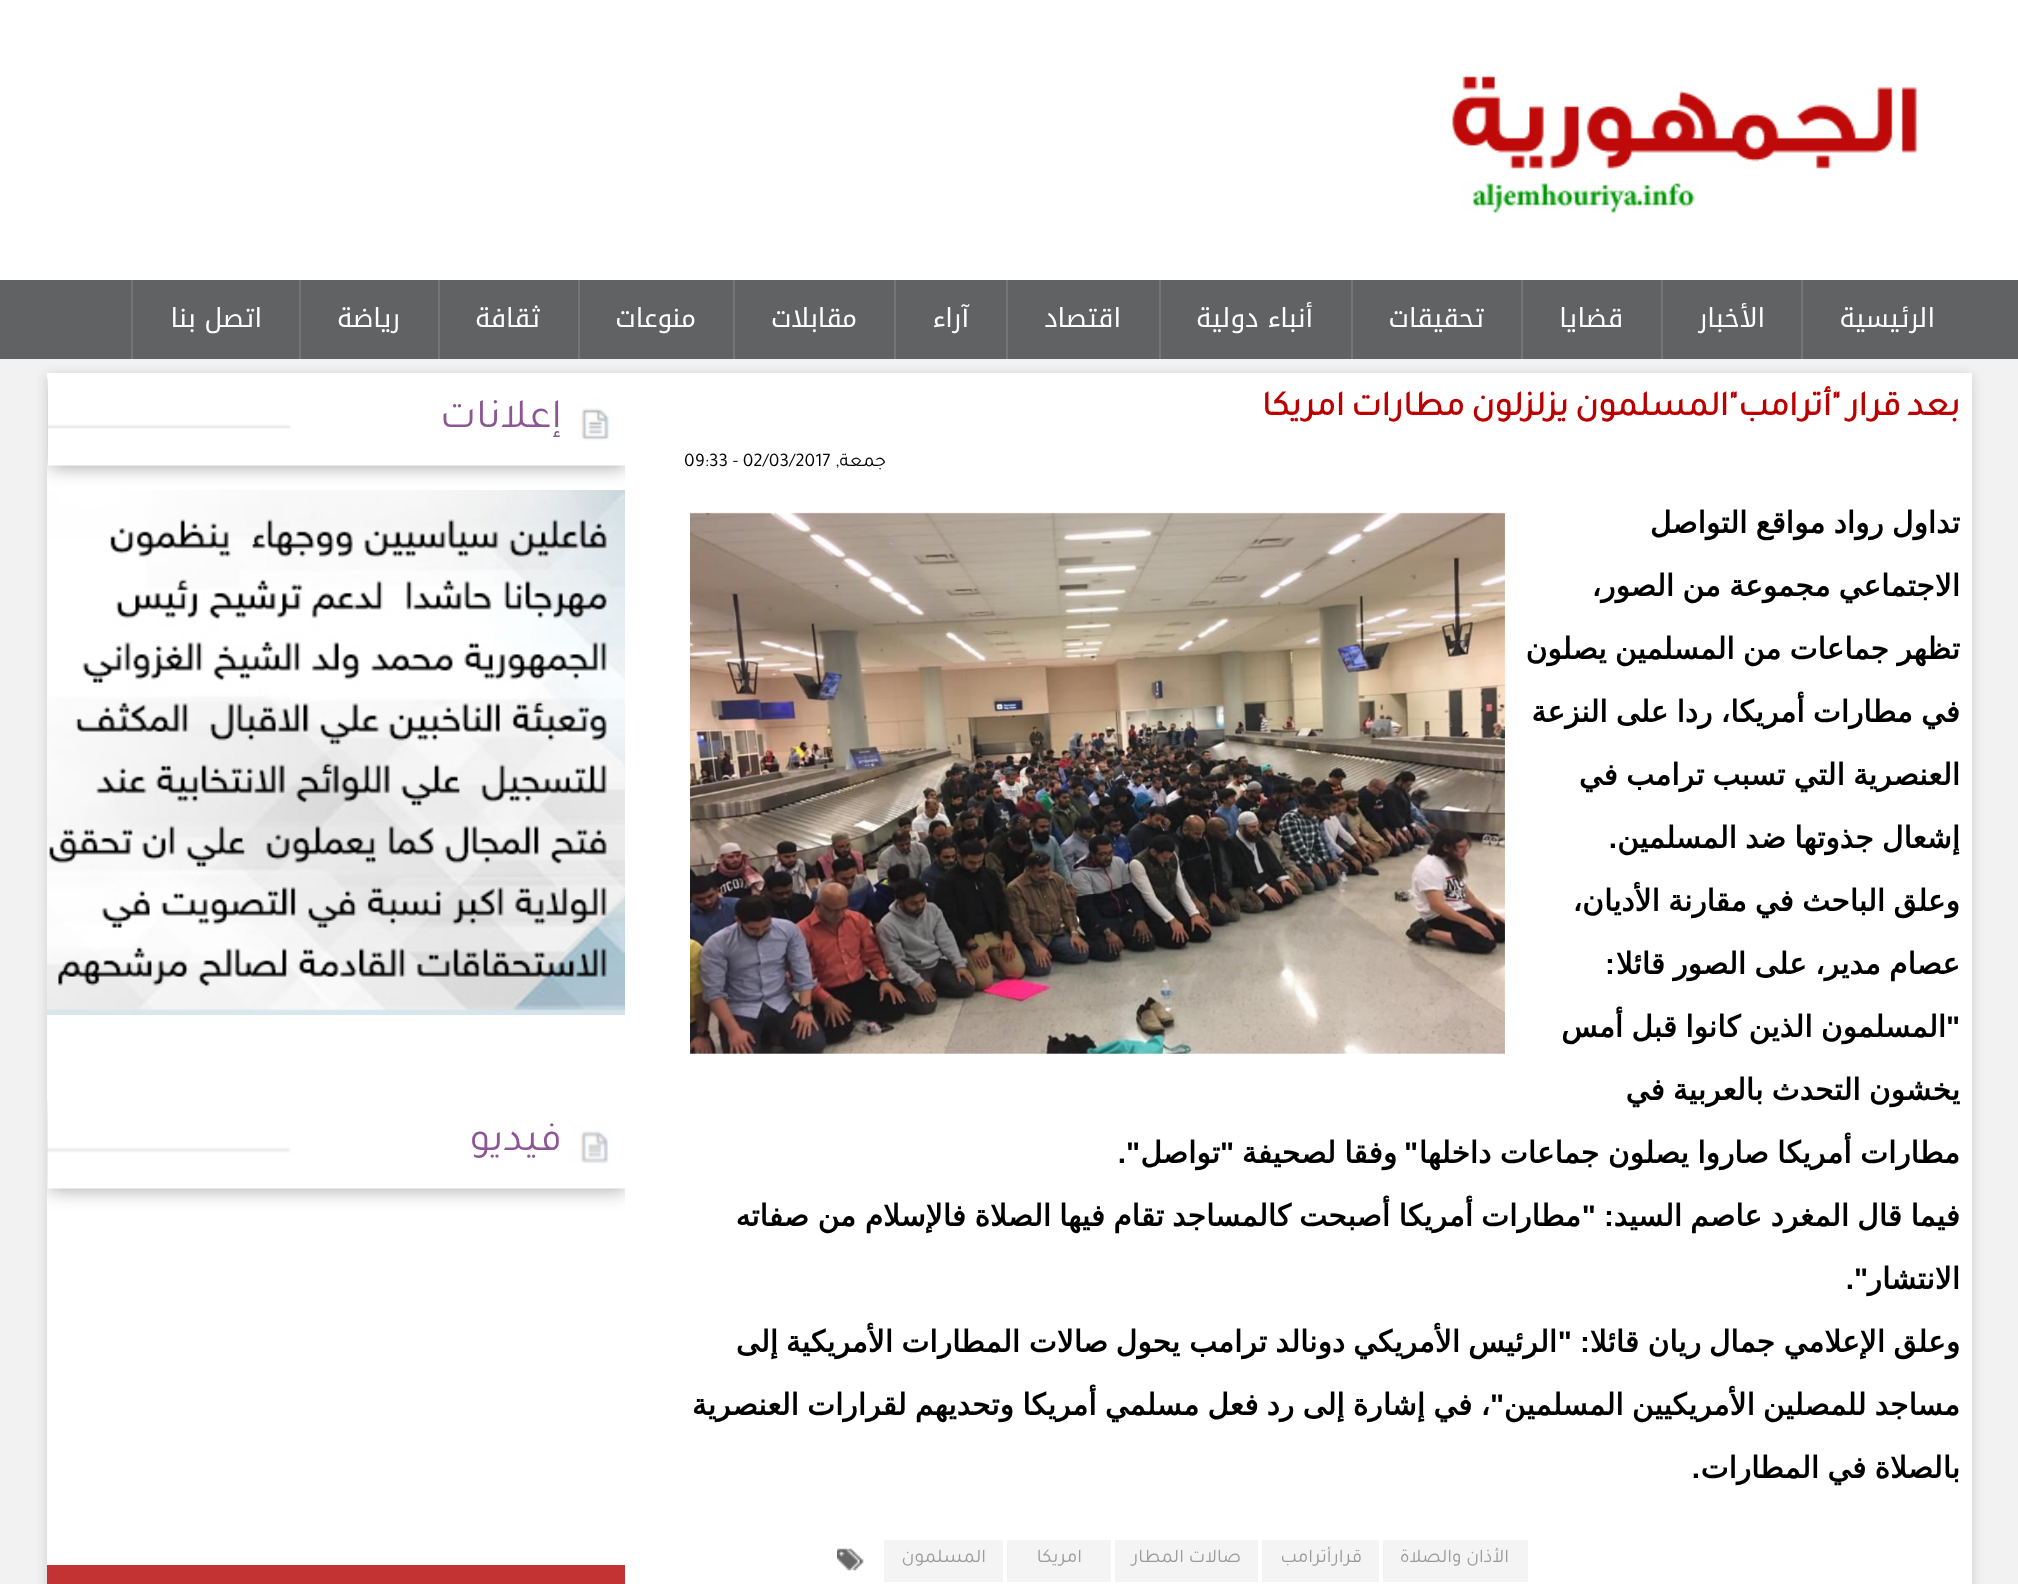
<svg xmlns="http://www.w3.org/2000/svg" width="2018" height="1584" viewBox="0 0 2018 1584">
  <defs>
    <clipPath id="clip1"><path d="M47 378H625V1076H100C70.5 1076 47 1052.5 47 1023Z"/></clipPath>
    <clipPath id="clip2"><path d="M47 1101H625V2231H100C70.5 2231 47 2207.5 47 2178Z"/></clipPath>
  </defs>
  <rect width="100%" height="100%" fill="#f2f2f2"/>
  <path d="M0 0h2018v280H0z" fill="#fff"/>
  <image x="1452" y="76" width="465" height="138" href="img/1.png"/>
  <path d="M0 280h2018v79H0z" fill="#606263"/>
  <path d="M1801 280h2v79H1801z" fill="#757575"/>
  <path d="M1661 280h2v79H1661z" fill="#757575"/>
  <path d="M1521 280h2v79H1521z" fill="#757575"/>
  <path d="M1351 280h2v79H1351z" fill="#757575"/>
  <path d="M1159 280h2v79H1159z" fill="#757575"/>
  <path d="M1006 280h2v79H1006z" fill="#757575"/>
  <path d="M894 280h2v79H894z" fill="#757575"/>
  <path d="M733 280h2v79H733z" fill="#757575"/>
  <path d="M578 280h2v79H578z" fill="#757575"/>
  <path d="M438 280h2v79H438z" fill="#757575"/>
  <path d="M299 280h2v79H299z" fill="#757575"/>
  <path d="M131 280h2v79H131z" fill="#757575"/>
  <path d="M47 375h1925v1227H47z" fill="#ababab80" filter="blur(6px)"/>
  <path d="M47 373h1925v1211H47z" fill="#fff"/>
  <image x="690" y="512" width="815" height="542" href="img/2.png"/>
  <image x="837" y="1548" width="27" height="23" href="img/3.png"/>
  <path d="M1383 1540h145v42H1383z" fill="#f4f4f4"/>
  <path d="M1262 1540h117v42H1262z" fill="#f4f4f4"/>
  <path d="M1115 1540h143v42H1115z" fill="#f4f4f4"/>
  <path d="M1007 1540h104v42H1007z" fill="#f4f4f4"/>
  <path d="M884 1540h119v42H884z" fill="#f4f4f4"/>
  <g clip-path="url(#clip1)">
    <path d="M49 380h578v87H49z" fill="#00000057" filter="blur(9.5px)"/>
  </g>
  <image x="48" y="378" width="577" height="88" href="img/4.png"/>
  <image x="47" y="490" width="578" height="525" href="img/5.png"/>
  <g clip-path="url(#clip2)">
    <path d="M49 1103h578v87H49z" fill="#00000057" filter="blur(9.5px)"/>
  </g>
  <image x="47" y="1101" width="578" height="88" href="img/6.png"/>
  <path d="M47 1565h578v19H47z" fill="#c33333"/>
  <g font-family="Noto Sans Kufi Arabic" font-size="26.25" direction="rtl" fill="#fff">
    <text x="1935" y="327">الرئيسية</text>
    <text x="1765" y="327">الأخبار</text>
    <text x="1623" y="327">قضايا</text>
    <text x="1484" y="327">تحقيقات</text>
    <text x="1313" y="327">أنباء دولية</text>
    <text x="1121" y="327">اقتصاد</text>
    <text x="969" y="327">آراء</text>
    <text x="857" y="327">مقابلات</text>
    <text x="696" y="327">منوعات</text>
    <text x="540" y="327">ثقافة</text>
    <text x="400" y="327">رياضة</text>
    <text x="262" y="327">اتصل بنا</text>
  </g>
  <text x="1960" y="415" word-spacing="-1.75" font-family="Tajawal" font-size="35" font-weight="bold" direction="rtl" fill="#ba0000">بعد قرار "أترامب"المسلمون يزلزلون مطارات امريكا</text>
  <text x="886" y="466" font-family="Tajawal" font-size="19.25" direction="rtl" fill="#000">جمعة,</text>
  <text x="684" y="466" font-family="Tajawal" font-size="19.25" fill="#000">09:33 - 02/03/2017</text>
  <g font-family="DejaVu Sans" font-size="29.75" font-weight="bold" direction="rtl" fill="#000">
    <text x="1960" y="533" word-spacing="-1.25">تداول رواد مواقع التواصل</text>
    <text x="1960" y="596" word-spacing="-1.25">الاجتماعي مجموعة من الصور،</text>
    <text x="1960" y="659" word-spacing="-1.25">تظهر جماعات من المسلمين يصلون</text>
    <text x="1960" y="722" word-spacing="-1.25">في مطارات أمريكا، ردا على النزعة</text>
    <text x="1960" y="785" word-spacing="-1.25">العنصرية التي تسبب ترامب في</text>
    <text x="1960" y="848" word-spacing="-1.25">إشعال جذوتها ضد المسلمين</text>
  </g>
  <text x="1617" y="848" font-family="Liberation Sans" font-size="29.75" font-weight="bold" direction="rtl" fill="#000">.</text>
  <g font-family="DejaVu Sans" font-size="29.75" font-weight="bold" direction="rtl" fill="#000">
    <text x="1960" y="911" word-spacing="-1.25">وعلق الباحث في مقارنة الأديان،</text>
    <text x="1960" y="974" word-spacing="-1.25">عصام مدير، على الصور قائلا</text>
  </g>
  <text x="1615" y="974" font-family="Liberation Sans" font-size="29.75" font-weight="bold" direction="rtl" fill="#000">:</text>
  <text x="1946" y="1037" word-spacing="-1.25" font-family="DejaVu Sans" font-size="29.75" font-weight="bold" direction="rtl" fill="#000">المسلمون الذين كانوا قبل أمس</text>
  <text x="1960" y="1037" font-family="Liberation Sans" font-size="29.75" font-weight="bold" direction="rtl" fill="#000">"</text>
  <g font-family="DejaVu Sans" font-size="29.75" font-weight="bold" direction="rtl" fill="#000">
    <text x="1960" y="1100" word-spacing="-1.25">يخشون التحدث بالعربية في</text>
    <text x="1960" y="1163" word-spacing="-1">مطارات أمريكا صاروا يصلون جماعات داخلها</text>
  </g>
  <text x="1418" y="1163" font-family="Liberation Sans" font-size="29.75" font-weight="bold" direction="rtl" fill="#000">"</text>
  <text x="1397" y="1163" word-spacing="-1" font-family="DejaVu Sans" font-size="29.75" font-weight="bold" direction="rtl" fill="#000">وفقا لصحيفة</text>
  <text x="1234" y="1163" font-family="Liberation Sans" font-size="29.75" font-weight="bold" direction="rtl" fill="#000">"</text>
  <text x="1220" y="1163" font-family="DejaVu Sans" font-size="29.75" font-weight="bold" direction="rtl" fill="#000">تواصل</text>
  <text x="1140" y="1163" font-family="Liberation Sans" font-size="29.75" font-weight="bold" direction="rtl" fill="#000">".</text>
  <g font-family="DejaVu Sans" font-size="29.75" font-weight="bold" direction="rtl" fill="#000">
    <text x="1960" y="1226">فيما</text>
    <text x="1902" y="1226">قال</text>
    <text x="1849" y="1226">المغرد</text>
    <text x="1762" y="1226">عاصم</text>
    <text x="1682" y="1226">السيد</text>
  </g>
  <text x="1614" y="1226" font-family="Liberation Sans" font-size="29.75" font-weight="bold" direction="rtl" fill="#000">: "</text>
  <g font-family="DejaVu Sans" font-size="29.75" font-weight="bold" direction="rtl" fill="#000">
    <text x="1581" y="1226">مطارات</text>
    <text x="1473" y="1226">أمريكا</text>
    <text x="1390" y="1226">أصبحت</text>
    <text x="1291" y="1226">كالمساجد</text>
    <text x="1164" y="1226">تقام</text>
    <text x="1105" y="1226">فيها</text>
    <text x="1051" y="1226">الصلاة</text>
    <text x="966" y="1226">فالإسلام</text>
    <text x="856" y="1226">من</text>
    <text x="809" y="1226">صفاته</text>
    <text x="1960" y="1289">الانتشار</text>
  </g>
  <text x="1868" y="1289" font-family="Liberation Sans" font-size="29.75" font-weight="bold" direction="rtl" fill="#000">".</text>
  <g font-family="DejaVu Sans" font-size="29.75" font-weight="bold" direction="rtl" fill="#000">
    <text x="1960" y="1352">وعلق</text>
    <text x="1885" y="1352">الإعلامي</text>
    <text x="1775" y="1352">جمال</text>
    <text x="1701" y="1352">ريان</text>
    <text x="1639" y="1352">قائلا</text>
  </g>
  <text x="1590" y="1352" font-family="Liberation Sans" font-size="29.75" font-weight="bold" direction="rtl" fill="#000">: "</text>
  <g font-family="DejaVu Sans" font-size="29.75" font-weight="bold" direction="rtl" fill="#000">
    <text x="1557" y="1352">الرئيس</text>
    <text x="1460" y="1352">الأمريكي</text>
    <text x="1345" y="1352">دونالد</text>
    <text x="1267" y="1352">ترامب</text>
    <text x="1180" y="1352">يحول</text>
    <text x="1108" y="1352">صالات</text>
    <text x="1020" y="1352">المطارات</text>
    <text x="893" y="1352">الأمريكية</text>
    <text x="778" y="1352">إلى</text>
    <text x="1960" y="1415" word-spacing="-1.25">مساجد للمصلين الأمريكيين المسلمين</text>
    <text x="1490" y="1415" word-spacing="-1.25">، في إشارة إلى رد فعل مسلمي أمريكا وتحديهم لقرارات العنصرية</text>
  </g>
  <text x="1504" y="1415" font-family="Liberation Sans" font-size="29.75" font-weight="bold" direction="rtl" fill="#000">"</text>
  <text x="1960" y="1478" word-spacing="-1.25" font-family="DejaVu Sans" font-size="29.75" font-weight="bold" direction="rtl" fill="#000">بالصلاة في المطارات</text>
  <text x="1700" y="1478" font-family="Liberation Sans" font-size="29.75" font-weight="bold" direction="rtl" fill="#000">.</text>
  <g font-family="Tajawal" font-size="19.25" direction="rtl" fill="#9a9a9a">
    <text x="1509" y="1562">الأذان والصلاة</text>
    <text x="1362" y="1562">قرارأترامب</text>
    <text x="1241" y="1562">صالات المطار</text>
    <text x="1082" y="1562">امريكا</text>
    <text x="986" y="1562">المسلمون</text>
  </g>
  <g font-family="Tajawal" font-size="42" direction="rtl" fill="#8c5694">
    <text x="562" y="427">إعلانات</text>
    <text x="562" y="1150">فيديو</text>
  </g>
</svg>
